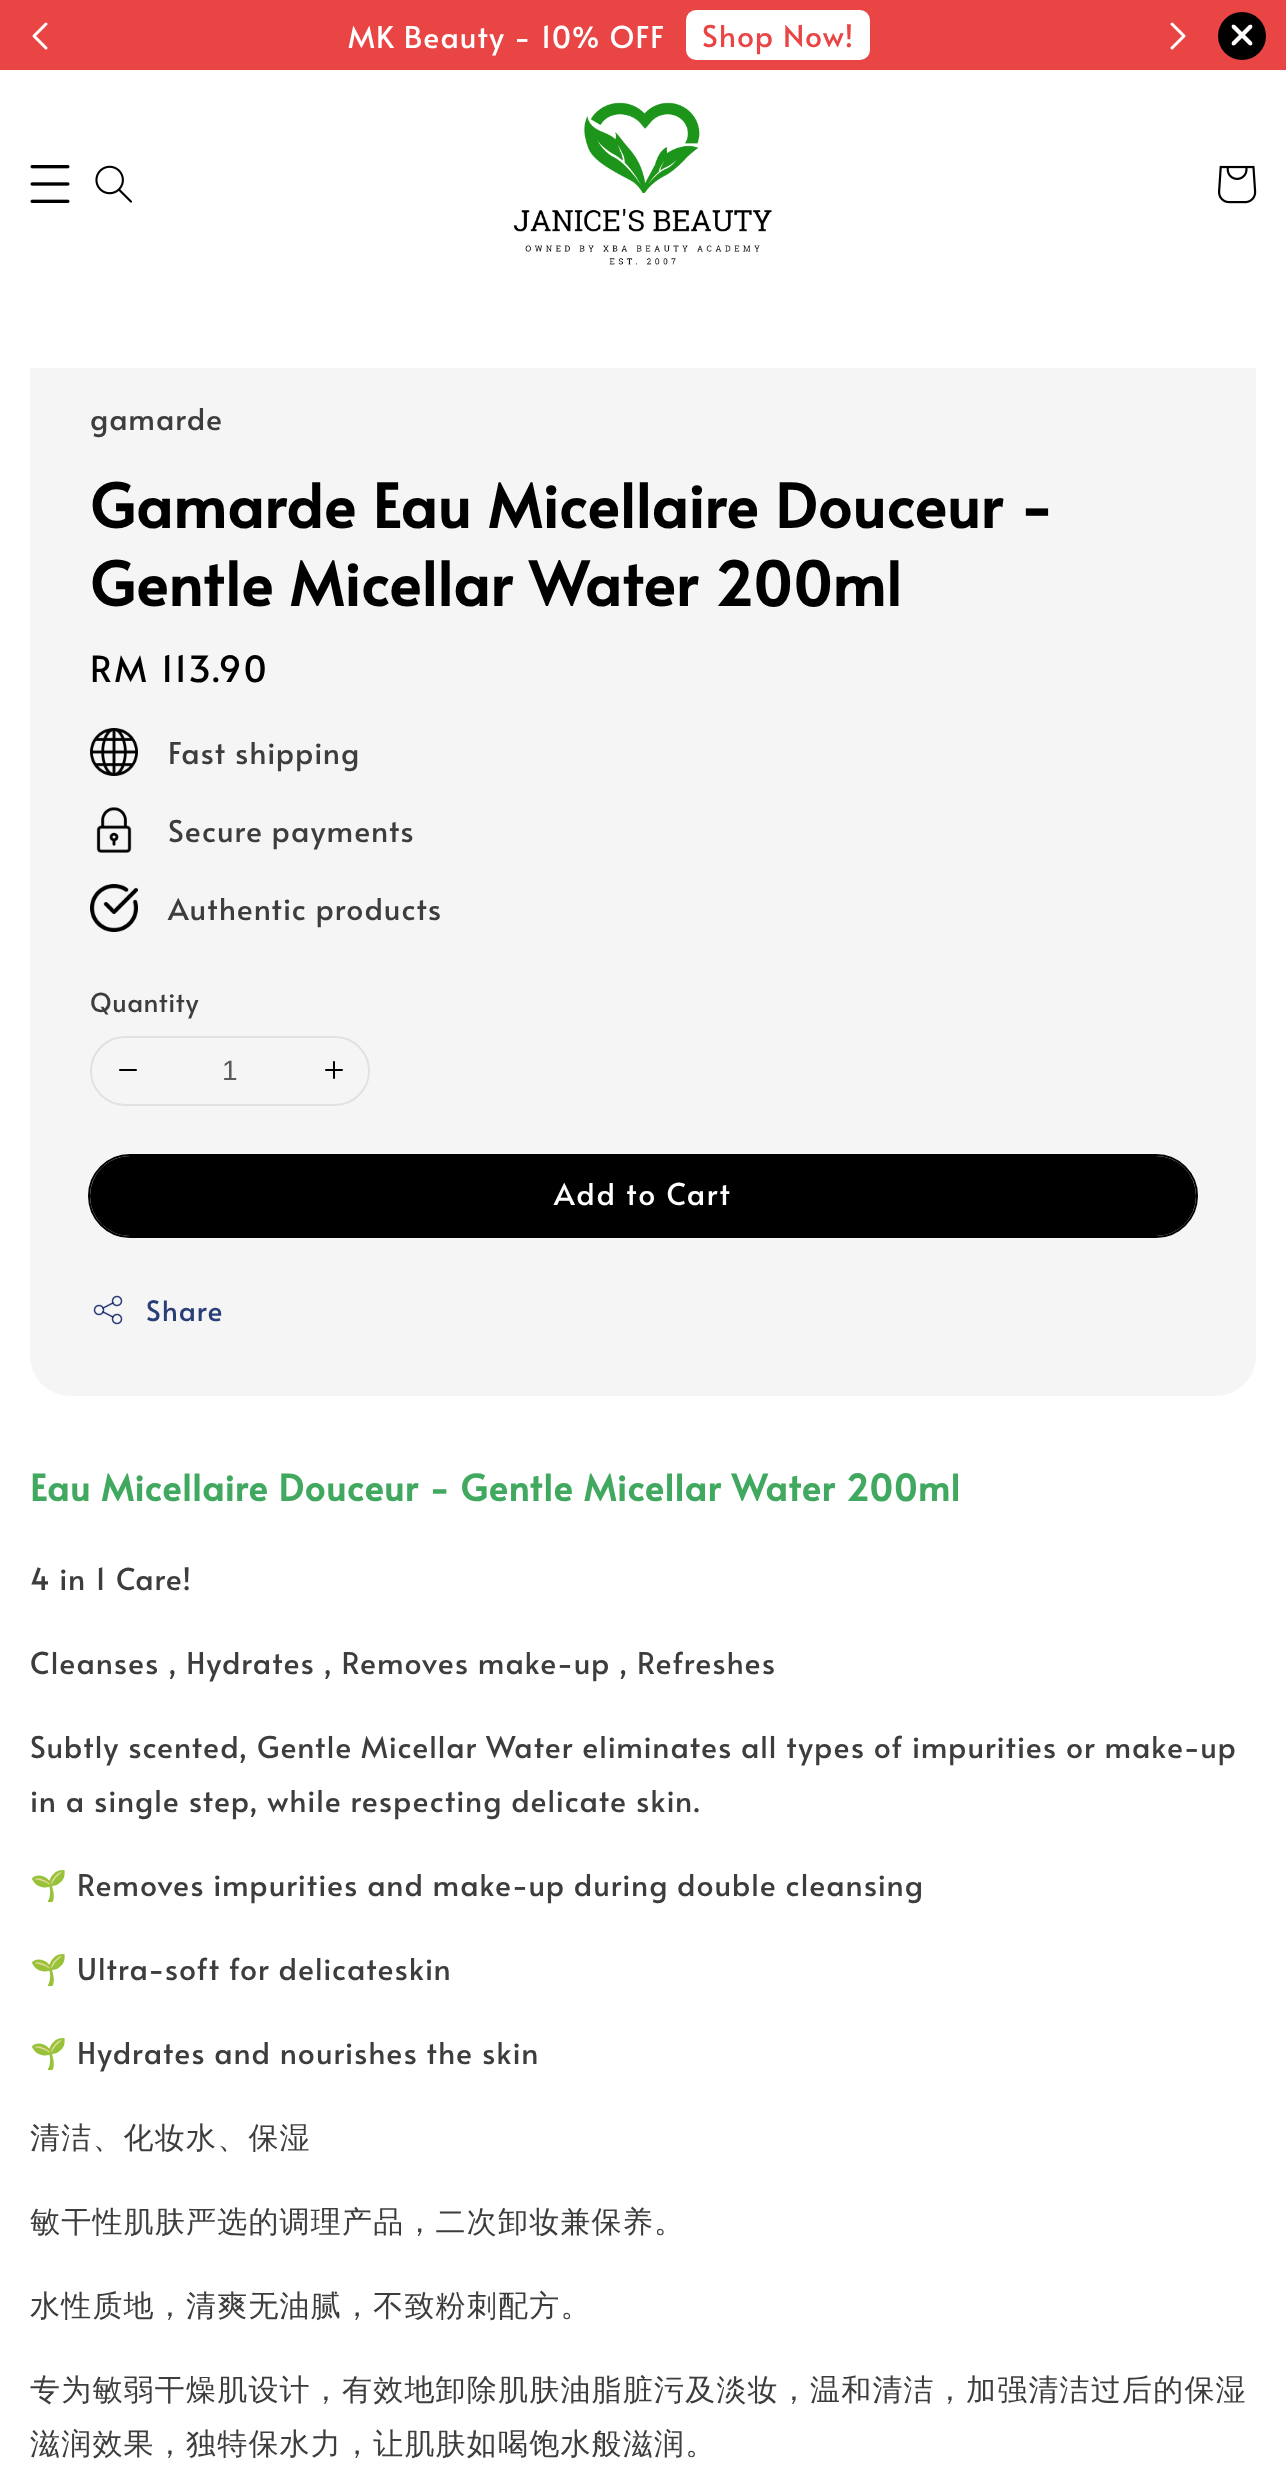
<svg xmlns="http://www.w3.org/2000/svg" width="1286" height="2469" viewBox="0 0 1286 2469">
  <rect width="100%" height="100%" fill="#fff"/>
  <path d="M0 0h1286v70H0z" fill="#e94545"/>
  <path d="M46 24L34 36L46 48" fill="none" stroke="#fff" stroke-width="3" stroke-linecap="round" stroke-linejoin="round"/>
  <rect x="686" y="10" width="184" height="50" rx="10" fill="#fff"/>
  <path d="M1172 24L1184 36L1172 48" fill="none" stroke="#fff" stroke-width="3" stroke-linecap="round" stroke-linejoin="round"/>
  <circle cx="1242" cy="36" r="24" fill="#000"/>
  <path d="M1252 25C1252.5 26 1252.5 27 1252 28L1235 45C1234 45.5 1233 45.5 1232 45C1231.5 44 1231.5 43 1232 42L1249 25C1250 24.5 1251 24.5 1252 25Z" fill="#fff"/>
  <path d="M1232 25C1233 24.5 1234 24.5 1235 25L1252 42C1252.5 43 1252.5 44 1252 45C1251 45.5 1250 45.5 1249 45L1232 28C1231.5 27 1231.5 26 1232 25Z" fill="#fff"/>
  <rect x="30" y="300" width="1226" height="1096" rx="40" fill="#f5f5f5"/>
  <path d="M30 300h1226v68H30z" fill="#fff"/>
  <image x="30" y="165" width="40" height="38" href="img/1.png"/>
  <image x="95" y="165" width="37" height="38" href="img/2.png"/>
  <image x="513" y="102" width="259" height="163" href="img/3.png"/>
  <image x="1218" y="165" width="39" height="39" href="img/4.png"/>
  <image x="90" y="728" width="48" height="48" href="img/5.png"/>
  <image x="96" y="807" width="36" height="46" href="img/6.png"/>
  <image x="90" y="884" width="48" height="48" href="img/7.png"/>
  <rect x="91" y="1037" width="278" height="68" rx="34" fill="none" stroke="#e1e1e1" stroke-width="2"/>
  <image x="119" y="1069" width="18" height="2" href="img/8.png"/>
  <image x="325" y="1061" width="18" height="18" href="img/9.png"/>
  <rect x="89" y="1155" width="1108" height="82" rx="41" fill="none" stroke="#000" stroke-width="2"/>
  <rect x="90" y="1156" width="1106" height="80" rx="40" fill="#000"/>
  <image x="93" y="1295" width="30" height="30" href="img/10.png"/>
  <text x="348" y="48" font-family="Alata" font-size="30" letter-spacing="1.2" fill="#fff">MK Beauty - 10% OFF</text>
  <text x="702" y="47" font-family="Alata" font-size="30" letter-spacing="1.2" fill="#e94545">Shop Now!</text>
  <text x="90" y="430" font-family="Alata" font-size="30" letter-spacing="1.2" fill="#3d3d3d">gamarde</text>
  <g font-family="Alata" font-size="60" font-weight="bold" letter-spacing="1.2" fill="#000">
    <text x="90" y="528">Gamarde Eau Micellaire Douceur -</text>
    <text x="90" y="606">Gentle Micellar Water 200ml</text>
  </g>
  <text x="90" y="682" font-family="Alata" font-size="36" letter-spacing="2.5" fill="#000">RM 113.90</text>
  <g font-family="Alata" font-size="30" letter-spacing="1.2" fill="#3d3d3d">
    <text x="168" y="764">Fast shipping</text>
    <text x="168" y="842">Secure payments</text>
    <text x="168" y="920">Authentic products</text>
  </g>
  <text x="90" y="1012" font-family="Alata" font-size="26" letter-spacing="0.75" fill="#3d3d3d">Quantity</text>
  <text x="222" y="1080" font-family="Liberation Sans" font-size="28" fill="#595959">1</text>
  <text x="554" y="1205" font-family="Alata" font-size="30" letter-spacing="2" fill="#fff">Add to Cart</text>
  <text x="146" y="1321" font-family="Alata" font-size="28" letter-spacing="1.2" fill="#293d78">Share</text>
  <text x="30" y="1501" font-family="Alata" font-size="36" font-weight="bold" letter-spacing="1.2" fill="#41a85f">Eau Micellaire Douceur - Gentle Micellar Water 200ml</text>
  <g font-family="Alata" font-size="30" letter-spacing="1.2" fill="#3d3d3d">
    <text x="30" y="1590">4 in 1 Care!</text>
    <text x="30" y="1674">Cleanses , Hydrates , Removes make-up , Refreshes</text>
    <text x="30" y="1758">Subtly scented, Gentle Micellar Water eliminates all types of impurities or make-up</text>
    <text x="30" y="1812">in a single step, while respecting delicate skin.</text>
  </g>
  <text x="30" y="1896" font-family="Noto Color Emoji" font-size="30" letter-spacing="1.2" fill="#3d3d3d">🌱</text>
  <text x="77" y="1896" font-family="Alata" font-size="30" letter-spacing="1.2" fill="#3d3d3d">Removes impurities and make-up during double cleansing</text>
  <text x="30" y="1980" font-family="Noto Color Emoji" font-size="30" letter-spacing="1.2" fill="#3d3d3d">🌱</text>
  <text x="77" y="1980" font-family="Alata" font-size="30" letter-spacing="1.2" fill="#3d3d3d">Ultra-soft for delicateskin</text>
  <text x="30" y="2064" font-family="Noto Color Emoji" font-size="30" letter-spacing="1.2" fill="#3d3d3d">🌱</text>
  <text x="77" y="2064" font-family="Alata" font-size="30" letter-spacing="1.2" fill="#3d3d3d">Hydrates and nourishes the skin</text>
  <g font-family="WenQuanYi Zen Hei" font-size="30" font-weight="500" letter-spacing="1.2" fill="#3d3d3d">
    <text x="30" y="2148">清洁、化妆水、保湿</text>
    <text x="30" y="2232">敏干性肌肤严选的调理产品，二次卸妆兼保养。</text>
    <text x="30" y="2316">水性质地，清爽无油腻，不致粉刺配方。</text>
    <text x="30" y="2400">专为敏弱干燥肌设计，有效地卸除肌肤油脂脏污及淡妆，温和清洁，加强清洁过后的保湿</text>
    <text x="30" y="2454">滋润效果，独特保水力，让肌肤如喝饱水般滋润。</text>
  </g>
</svg>
